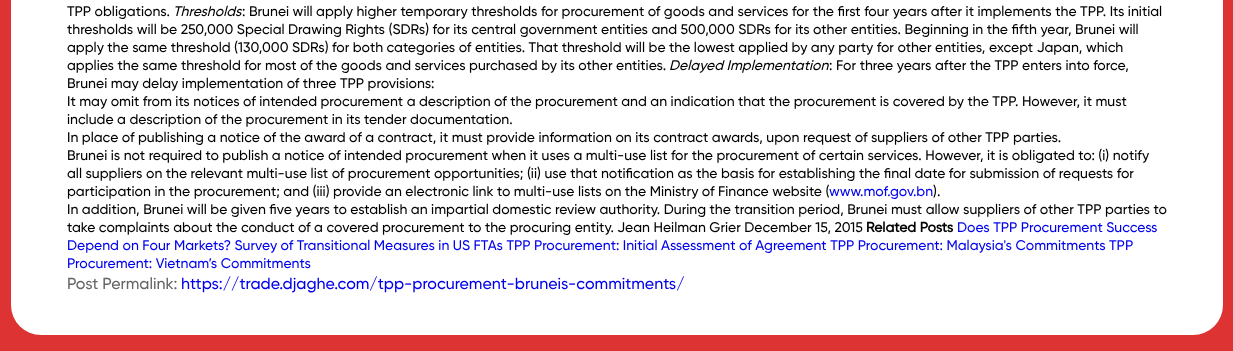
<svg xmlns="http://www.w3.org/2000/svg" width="1233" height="351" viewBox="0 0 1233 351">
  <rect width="100%" height="100%" fill="#d33"/>
  <rect x="11" y="-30" width="1212" height="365" rx="30" fill="#fff"/>
  <text x="67" y="16" font-family="Gilroy" font-size="14" font-weight="500" fill="#000">TPP obligations.</text>
  <text x="173" y="16" font-family="Gilroy" font-size="14" font-weight="500" font-style="italic" fill="#000">Thresholds</text>
  <g font-family="Gilroy" font-size="14" font-weight="500" fill="#000">
    <text x="242" y="16">: Brunei will apply higher temporary thresholds for procurement of goods and services for the first four years after it implements the TPP. Its initial</text>
    <text x="67" y="34">thresholds will be 250,000 Special Drawing Rights (SDRs) for its central government entities and 500,000 SDRs for its other entities. Beginning in the fifth year, Brunei will</text>
    <text x="67" y="52">apply the same threshold (130,000 SDRs) for both categories of entities. That threshold will be the lowest applied by any party for other entities, except Japan, which</text>
    <text x="67" y="70">applies the same threshold for most of the goods and services purchased by its other entities.</text>
  </g>
  <text x="669" y="70" font-family="Gilroy" font-size="14" font-weight="500" font-style="italic" fill="#000">Delayed Implementation</text>
  <g font-family="Gilroy" font-size="14" font-weight="500" fill="#000">
    <text x="829" y="70">: For three years after the TPP enters into force,</text>
    <text x="67" y="88">Brunei may delay implementation of three TPP provisions:</text>
    <text x="67" y="106">It may omit from its notices of intended procurement a description of the procurement and an indication that the procurement is covered by the TPP. However, it must</text>
    <text x="67" y="124">include a description of the procurement in its tender documentation.</text>
    <text x="67" y="142">In place of publishing a notice of the award of a contract, it must provide information on its contract awards, upon request of suppliers of other TPP parties.</text>
    <text x="67" y="160">Brunei is not required to publish a notice of intended procurement when it uses a multi-use list for the procurement of certain services. However, it is obligated to: (i) notify</text>
    <text x="67" y="178">all suppliers on the relevant multi-use list of procurement opportunities; (ii) use that notification as the basis for establishing the final date for submission of requests for</text>
    <text x="67" y="196">participation in the procurement; and (iii) provide an electronic link to multi-use lists on the Ministry of Finance website (</text>
  </g>
  <text x="829" y="196" font-family="Gilroy" font-size="14" font-weight="500" fill="#00e">www.mof.gov.bn</text>
  <g font-family="Gilroy" font-size="14" font-weight="500" fill="#000">
    <text x="933" y="196">).</text>
    <text x="67" y="214">In addition, Brunei will be given five years to establish an impartial domestic review authority. During the transition period, Brunei must allow suppliers of other TPP parties to</text>
    <text x="67" y="232">take complaints about the conduct of a covered procurement to the procuring entity. Jean Heilman Grier December 15, 2015</text>
  </g>
  <text x="866" y="232" font-family="Gilroy" font-size="14" font-weight="bold" fill="#000">Related Posts</text>
  <g font-family="Gilroy" font-size="14" font-weight="500" fill="#00e">
    <text x="957" y="232">Does TPP Procurement Success</text>
    <text x="67" y="250">Depend on Four Markets? Survey of Transitional Measures in US FTAs TPP Procurement: Initial Assessment of Agreement TPP Procurement: Malaysia's Commitments TPP</text>
    <text x="67" y="268">Procurement: Vietnam’s Commitments</text>
  </g>
  <text x="67" y="289" font-family="Gilroy" font-size="16" font-weight="500" fill="#666">Post Permalink:</text>
  <text x="181" y="289" font-family="Gilroy" font-size="16" font-weight="500" fill="#00e">https://trade.djaghe.com/tpp-procurement-bruneis-commitments/</text>
</svg>
